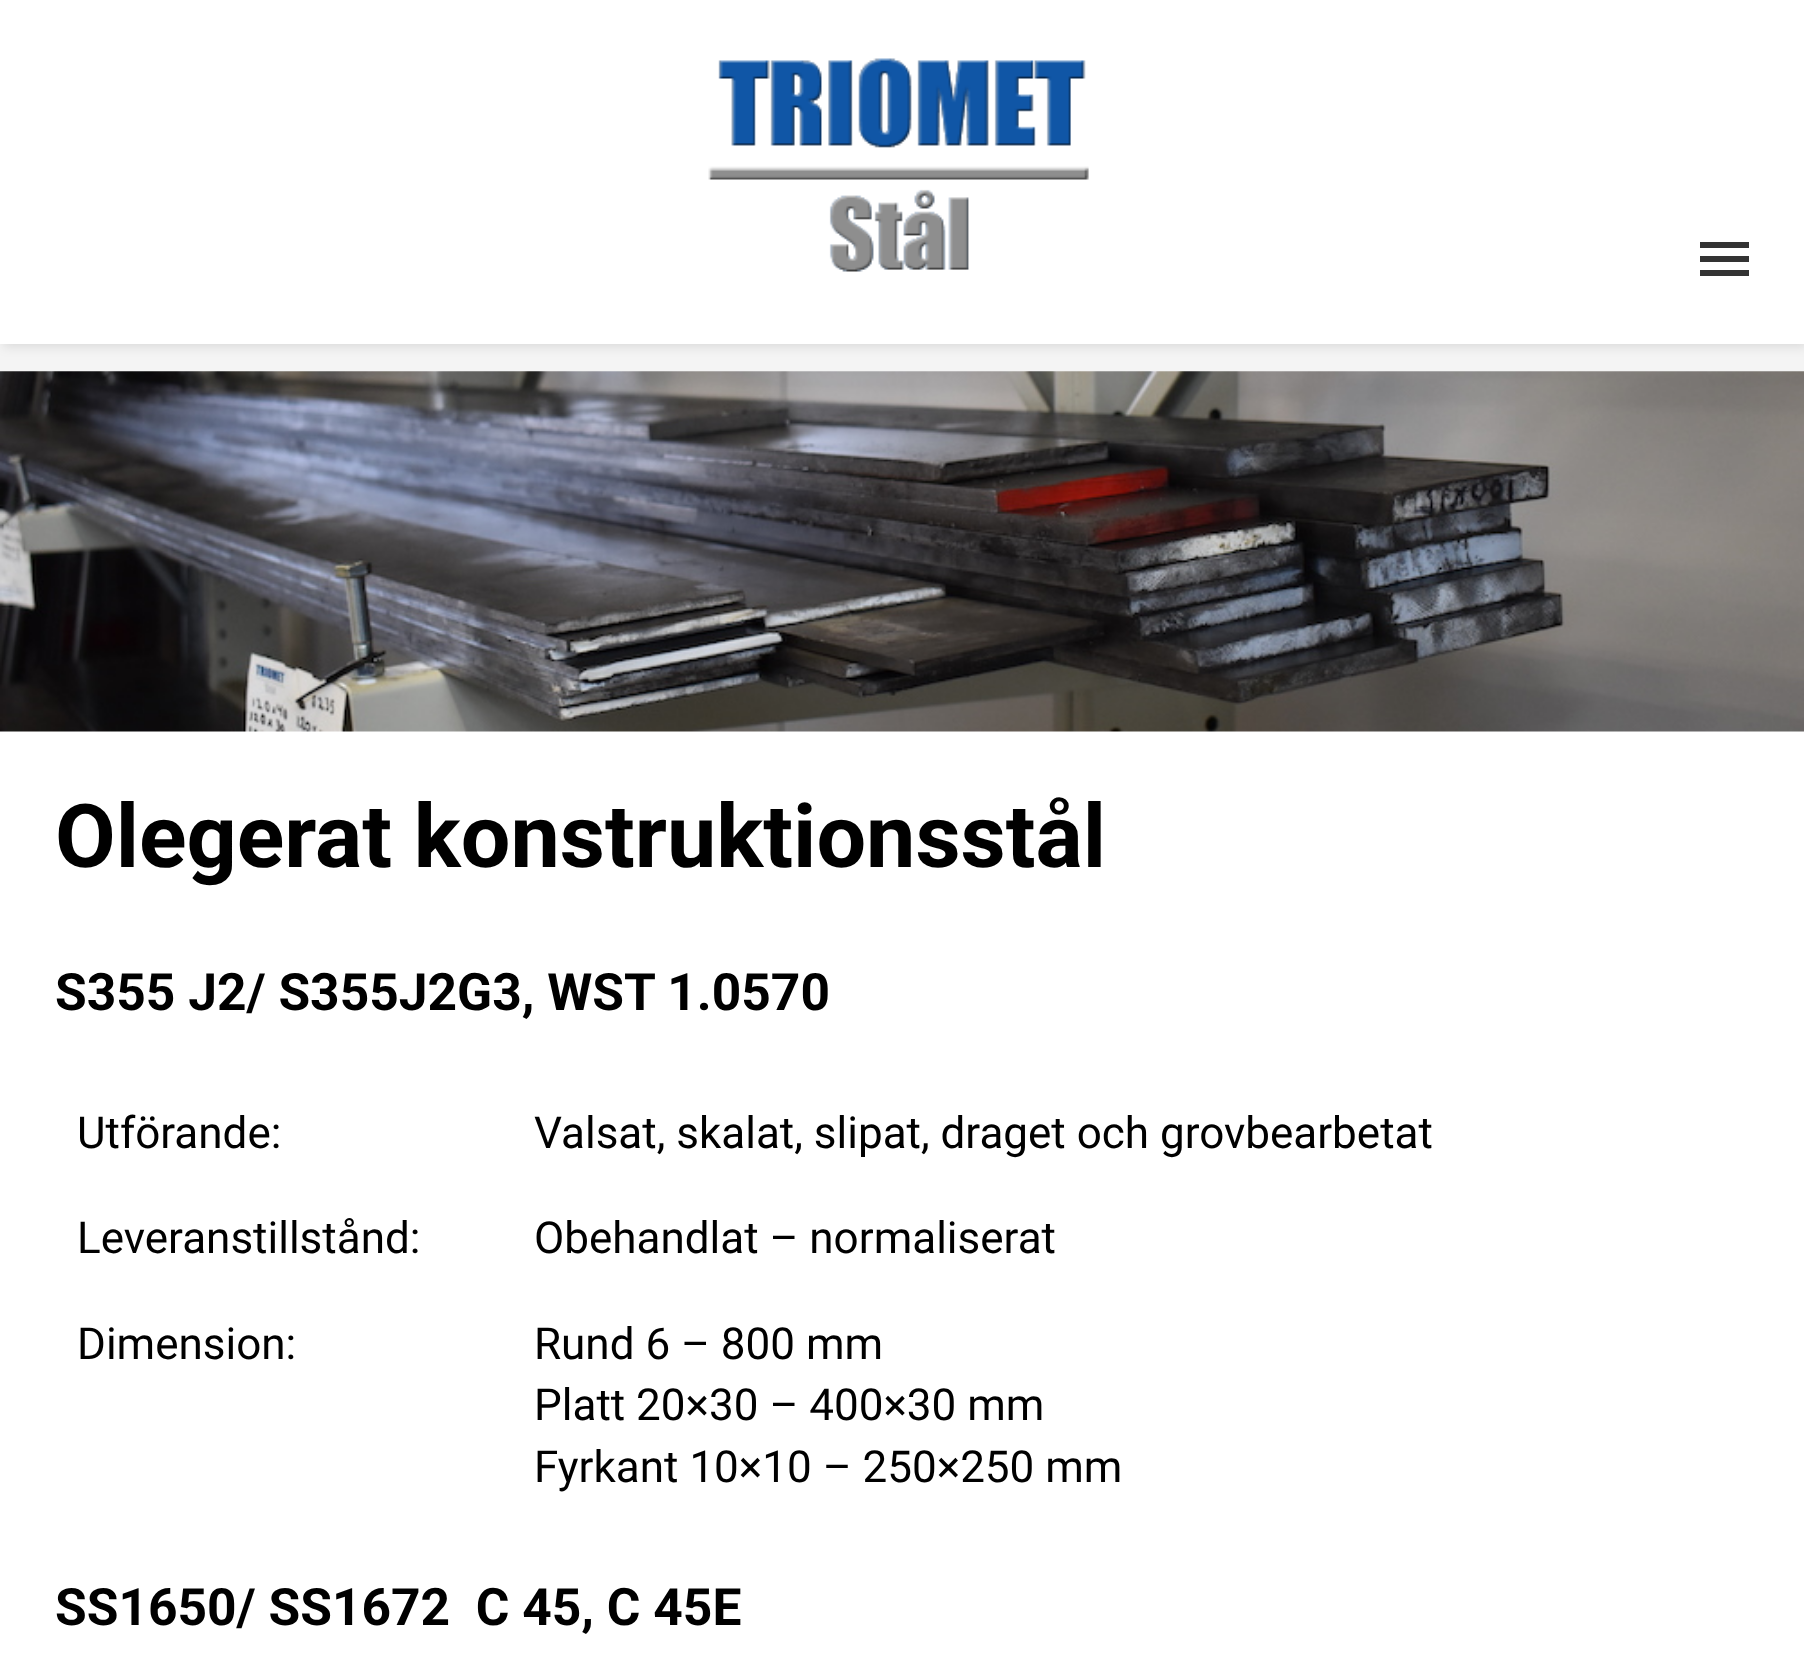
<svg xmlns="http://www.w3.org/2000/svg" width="1804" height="1663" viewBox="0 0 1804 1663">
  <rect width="100%" height="100%" fill="#f4f4f4"/>
  <path d="M3 3h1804v344H3z" fill="#0000001a" filter="blur(5.5px)"/>
  <path d="M0 0h1804v344H0z" fill="#fff"/>
  <image x="708" y="58" width="381" height="214" href="img/1.png"/>
  <path d="M1700 256h49v6H1700z" fill="#333"/>
  <path d="M1700 242h49v6H1700z" fill="#333"/>
  <path d="M1700 270h49v6H1700z" fill="#333"/>
  <path d="M0 371h1804v1292H0z" fill="#fff"/>
  <image x="0" y="371" width="1804" height="361" href="img/2.png"/>
  <text x="55" y="867" font-family="Roboto" font-size="88" font-weight="bold" fill="#000">Olegerat konstruktionsstål</text>
  <text x="55" y="1010" font-family="Roboto" font-size="51.5" font-weight="bold" fill="#000">S355 J2/ S355J2G3, WST 1.0570</text>
  <g font-family="Roboto" font-size="44" fill="#000">
    <text x="77" y="1148">Utförande:</text>
    <text x="534" y="1148">Valsat, skalat, slipat, draget och grovbearbetat</text>
    <text x="77" y="1253">Leveranstillstånd:</text>
    <text x="534" y="1253">Obehandlat – normaliserat</text>
    <text x="77" y="1359">Dimension:</text>
    <text x="534" y="1359">Rund 6 – 800 mm</text>
    <text x="534" y="1420">Platt 20×30 – 400×30 mm</text>
    <text x="534" y="1482">Fyrkant 10×10 – 250×250 mm</text>
  </g>
  <text x="55" y="1625" font-family="Roboto" font-size="51.5" font-weight="bold" fill="#000" xml:space="preserve">SS1650/ SS1672  C 45, C 45E</text>
</svg>
